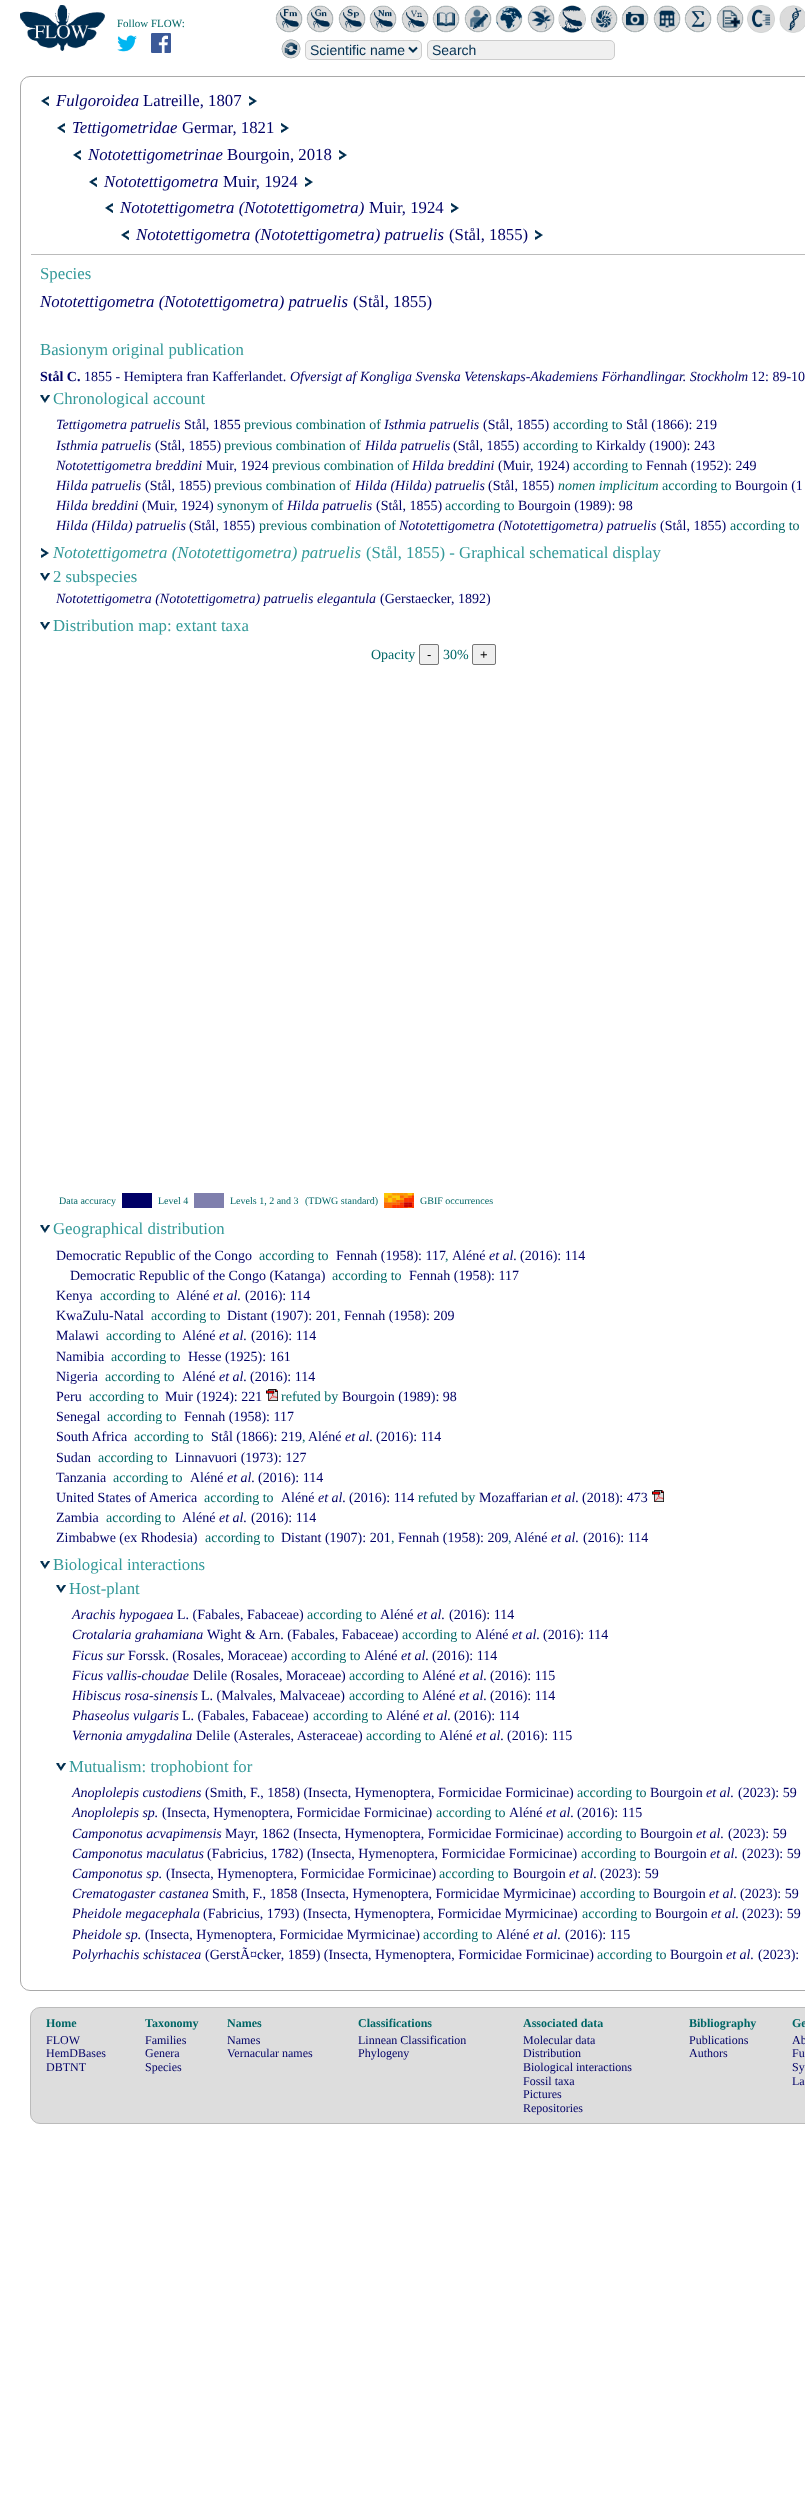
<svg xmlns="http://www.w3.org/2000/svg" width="805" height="2501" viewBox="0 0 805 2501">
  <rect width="100%" height="100%" fill="#fff"/>
  <image x="20" y="5" width="85" height="46" href="img/1.png"/>
  <image x="117" y="35" width="20" height="17" href="img/2.png"/>
  <image x="151" y="33" width="20" height="20" href="img/3.png"/>
  <image x="275" y="5" width="28" height="28" href="img/4.png"/>
  <image x="306" y="5" width="28" height="28" href="img/5.png"/>
  <image x="338" y="5" width="28" height="28" href="img/6.png"/>
  <image x="369" y="5" width="28" height="28" href="img/7.png"/>
  <image x="401" y="5" width="28" height="28" href="img/8.png"/>
  <image x="432" y="5" width="28" height="28" href="img/9.png"/>
  <image x="464" y="5" width="28" height="28" href="img/10.png"/>
  <image x="495" y="5" width="28" height="28" href="img/11.png"/>
  <image x="527" y="5" width="28" height="28" href="img/12.png"/>
  <image x="558" y="5" width="28" height="28" href="img/13.png"/>
  <image x="590" y="5" width="28" height="28" href="img/14.png"/>
  <image x="621" y="5" width="28" height="28" href="img/15.png"/>
  <image x="653" y="5" width="28" height="28" href="img/16.png"/>
  <image x="684" y="5" width="28" height="28" href="img/17.png"/>
  <image x="716" y="5" width="28" height="28" href="img/18.png"/>
  <image x="747" y="5" width="28" height="28" href="img/19.png"/>
  <image x="779" y="5" width="26" height="28" href="img/20.png"/>
  <image x="281" y="39" width="20" height="20" href="img/21.png"/>
  <rect x="305.5" y="40.5" width="116" height="19" rx="4.5" fill="#f0f0f0" stroke="#ccc"/>
  <path d="M409 47.5L413 51.5L417 47.5" fill="none" stroke="#002e4f" stroke-width="2"/>
  <rect x="427.5" y="40.5" width="187" height="19" rx="4.5" fill="#f0f0f0" stroke="#ccc"/>
  <rect x="20.5" y="76.5" width="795" height="1914" rx="9.5" fill="none" stroke="#a9a9a9"/>
  <image x="41" y="96" width="8" height="10" href="img/22.png"/>
  <image x="249" y="96" width="8" height="10" href="img/23.png"/>
  <image x="57" y="123" width="8" height="10" href="img/22.png"/>
  <image x="281" y="123" width="8" height="10" href="img/23.png"/>
  <image x="73" y="150" width="8" height="10" href="img/22.png"/>
  <image x="339" y="150" width="8" height="10" href="img/23.png"/>
  <image x="89" y="177" width="8" height="10" href="img/22.png"/>
  <image x="305" y="177" width="8" height="10" href="img/23.png"/>
  <image x="105" y="203" width="8" height="10" href="img/22.png"/>
  <image x="451" y="203" width="8" height="10" href="img/23.png"/>
  <image x="121" y="230" width="8" height="10" href="img/22.png"/>
  <image x="535" y="230" width="8" height="10" href="img/23.png"/>
  <path d="M31 254h774v1H31z" fill="#bbb"/>
  <image x="40" y="395" width="10" height="8" href="img/24.png"/>
  <image x="41" y="548" width="8" height="10" href="img/23.png"/>
  <image x="40" y="573" width="10" height="8" href="img/24.png"/>
  <image x="40" y="622" width="10" height="8" href="img/24.png"/>
  <rect x="419.5" y="644.5" width="19" height="20" rx="1.5" fill="#efefef" stroke="#767676"/>
  <rect x="472.5" y="644.5" width="23" height="20" rx="1.5" fill="#efefef" stroke="#767676"/>
  <path d="M122 1193h30v15H122z" fill="#006"/>
  <path d="M194 1193h30v15H194z" fill="#7f7fad"/>
  <image x="384" y="1193" width="30" height="15" href="img/25.png"/>
  <image x="40" y="1225" width="10" height="8" href="img/24.png"/>
  <image x="266" y="1389" width="12" height="12" href="img/26.png"/>
  <image x="652" y="1490" width="12" height="12" href="img/26.png"/>
  <image x="40" y="1561" width="10" height="8" href="img/24.png"/>
  <image x="56" y="1585" width="10" height="8" href="img/24.png"/>
  <image x="56" y="1763" width="10" height="8" href="img/24.png"/>
  <rect x="30.5" y="2007.5" width="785" height="116" rx="9.5" fill="#ddd" stroke="#bbb"/>
  <text x="117" y="27" font-family="Liberation Serif" font-size="11" fill="#066">Follow FLOW:</text>
  <g font-family="Liberation Sans" font-size="14" fill="#002e4f">
    <text x="310" y="55">Scientific name</text>
    <text x="432" y="55">Search</text>
  </g>
  <text x="56" y="106" font-family="Liberation Serif" font-size="16.75" font-style="italic" fill="#006">Fulgoroidea</text>
  <text x="143" y="106" font-family="Liberation Serif" font-size="16.75" fill="#006">Latreille, 1807</text>
  <text x="72" y="133" font-family="Liberation Serif" font-size="16.75" font-style="italic" fill="#006">Tettigometridae</text>
  <text x="182" y="133" font-family="Liberation Serif" font-size="16.75" fill="#006">Germar, 1821</text>
  <text x="88" y="160" font-family="Liberation Serif" font-size="16.75" font-style="italic" fill="#006">Nototettigometrinae</text>
  <text x="227" y="160" font-family="Liberation Serif" font-size="16.75" fill="#006">Bourgoin, 2018</text>
  <text x="104" y="187" font-family="Liberation Serif" font-size="16.75" font-style="italic" fill="#006">Nototettigometra</text>
  <text x="223" y="187" font-family="Liberation Serif" font-size="16.75" fill="#006">Muir, 1924</text>
  <text x="120" y="213" font-family="Liberation Serif" font-size="16.75" font-style="italic" fill="#006">Nototettigometra (Nototettigometra)</text>
  <text x="369" y="213" font-family="Liberation Serif" font-size="16.75" fill="#006">Muir, 1924</text>
  <text x="136" y="240" font-family="Liberation Serif" font-size="16.75" font-style="italic" fill="#006">Nototettigometra (Nototettigometra) patruelis</text>
  <text x="449" y="240" font-family="Liberation Serif" font-size="16.75" fill="#006">(Stål, 1855)</text>
  <text x="40" y="279" font-family="Liberation Serif" font-size="16.75" fill="#399">Species</text>
  <text x="40" y="307" font-family="Liberation Serif" font-size="16.75" font-style="italic" fill="#006">Nototettigometra (Nototettigometra) patruelis</text>
  <text x="353" y="307" font-family="Liberation Serif" font-size="16.75" fill="#006">(Stål, 1855)</text>
  <text x="40" y="355" font-family="Liberation Serif" font-size="16.75" fill="#399">Basionym original publication</text>
  <text x="40" y="381" font-family="Liberation Serif" font-size="14" font-weight="bold" fill="#006">Stål C.</text>
  <text x="84" y="381" font-family="Liberation Serif" font-size="14" fill="#006">1855 - Hemiptera fran Kafferlandet.</text>
  <text x="290" y="381" font-family="Liberation Serif" font-size="14" font-style="italic" fill="#006">Ofversigt af Kongliga Svenska Vetenskaps-Akademiens Förhandlingar. Stockholm</text>
  <text x="751" y="381" font-family="Liberation Serif" font-size="14" fill="#006">12: 89-10</text>
  <text x="53" y="404" font-family="Liberation Serif" font-size="16.75" fill="#399">Chronological account</text>
  <text x="56" y="429" font-family="Liberation Serif" font-size="14" font-style="italic" fill="#006">Tettigometra patruelis</text>
  <text x="184" y="429" font-family="Liberation Serif" font-size="14" fill="#006">Stål, 1855</text>
  <text x="244" y="429" font-family="Liberation Serif" font-size="14" fill="#066">previous combination of</text>
  <text x="384" y="429" font-family="Liberation Serif" font-size="14" font-style="italic" fill="#006">Isthmia patruelis</text>
  <text x="483" y="429" font-family="Liberation Serif" font-size="14" fill="#006">(Stål, 1855)</text>
  <text x="553" y="429" font-family="Liberation Serif" font-size="14" fill="#066">according to</text>
  <text x="626" y="429" font-family="Liberation Serif" font-size="14" fill="#006">Stål (1866): 219</text>
  <text x="56" y="450" font-family="Liberation Serif" font-size="14" font-style="italic" fill="#006">Isthmia patruelis</text>
  <text x="155" y="450" font-family="Liberation Serif" font-size="14" fill="#006">(Stål, 1855)</text>
  <text x="224" y="450" font-family="Liberation Serif" font-size="14" fill="#066">previous combination of</text>
  <text x="365" y="450" font-family="Liberation Serif" font-size="14" font-style="italic" fill="#006">Hilda patruelis</text>
  <text x="453" y="450" font-family="Liberation Serif" font-size="14" fill="#006">(Stål, 1855)</text>
  <text x="523" y="450" font-family="Liberation Serif" font-size="14" fill="#066">according to</text>
  <text x="596" y="450" font-family="Liberation Serif" font-size="14" fill="#006">Kirkaldy (1900): 243</text>
  <text x="56" y="470" font-family="Liberation Serif" font-size="14" font-style="italic" fill="#006">Nototettigometra breddini</text>
  <text x="206" y="470" font-family="Liberation Serif" font-size="14" fill="#006">Muir, 1924</text>
  <text x="272" y="470" font-family="Liberation Serif" font-size="14" fill="#066">previous combination of</text>
  <text x="412" y="470" font-family="Liberation Serif" font-size="14" font-style="italic" fill="#006">Hilda breddini</text>
  <text x="498" y="470" font-family="Liberation Serif" font-size="14" fill="#006">(Muir, 1924)</text>
  <text x="573" y="470" font-family="Liberation Serif" font-size="14" fill="#066">according to</text>
  <text x="646" y="470" font-family="Liberation Serif" font-size="14" fill="#006">Fennah (1952): 249</text>
  <text x="56" y="490" font-family="Liberation Serif" font-size="14" font-style="italic" fill="#006">Hilda patruelis</text>
  <text x="145" y="490" font-family="Liberation Serif" font-size="14" fill="#006">(Stål, 1855)</text>
  <text x="214" y="490" font-family="Liberation Serif" font-size="14" fill="#066">previous combination of</text>
  <text x="355" y="490" font-family="Liberation Serif" font-size="14" font-style="italic" fill="#006">Hilda (Hilda) patruelis</text>
  <text x="488" y="490" font-family="Liberation Serif" font-size="14" fill="#006">(Stål, 1855)</text>
  <text x="558" y="490" font-family="Liberation Serif" font-size="14" font-style="italic" fill="#066">nomen implicitum</text>
  <text x="662" y="490" font-family="Liberation Serif" font-size="14" fill="#066">according to</text>
  <text x="735" y="490" font-family="Liberation Serif" font-size="14" fill="#006">Bourgoin (1</text>
  <text x="56" y="510" font-family="Liberation Serif" font-size="14" font-style="italic" fill="#006">Hilda breddini</text>
  <text x="142" y="510" font-family="Liberation Serif" font-size="14" fill="#006">(Muir, 1924)</text>
  <text x="217" y="510" font-family="Liberation Serif" font-size="14" fill="#066">synonym of</text>
  <text x="287" y="510" font-family="Liberation Serif" font-size="14" font-style="italic" fill="#006">Hilda patruelis</text>
  <text x="376" y="510" font-family="Liberation Serif" font-size="14" fill="#006">(Stål, 1855)</text>
  <text x="445" y="510" font-family="Liberation Serif" font-size="14" fill="#066">according to</text>
  <text x="518" y="510" font-family="Liberation Serif" font-size="14" fill="#006">Bourgoin (1989): 98</text>
  <text x="56" y="530" font-family="Liberation Serif" font-size="14" font-style="italic" fill="#006">Hilda (Hilda) patruelis</text>
  <text x="189" y="530" font-family="Liberation Serif" font-size="14" fill="#006">(Stål, 1855)</text>
  <text x="259" y="530" font-family="Liberation Serif" font-size="14" fill="#066">previous combination of</text>
  <text x="399" y="530" font-family="Liberation Serif" font-size="14" font-style="italic" fill="#006">Nototettigometra (Nototettigometra) patruelis</text>
  <text x="660" y="530" font-family="Liberation Serif" font-size="14" fill="#006">(Stål, 1855)</text>
  <text x="730" y="530" font-family="Liberation Serif" font-size="14" fill="#066">according to</text>
  <text x="53" y="558" font-family="Liberation Serif" font-size="16.75" font-style="italic" fill="#399">Nototettigometra (Nototettigometra) patruelis</text>
  <g font-family="Liberation Serif" font-size="16.75" fill="#399">
    <text x="366" y="558">(Stål, 1855) - Graphical schematical display</text>
    <text x="53" y="582">2 subspecies</text>
  </g>
  <text x="56" y="603" font-family="Liberation Serif" font-size="14" font-style="italic" fill="#006">Nototettigometra (Nototettigometra) patruelis elegantula</text>
  <text x="380" y="603" font-family="Liberation Serif" font-size="14" fill="#006">(Gerstaecker, 1892)</text>
  <text x="53" y="631" font-family="Liberation Serif" font-size="16.75" fill="#399">Distribution map: extant taxa</text>
  <text x="371" y="659" font-family="Liberation Serif" font-size="14" fill="#066">Opacity</text>
  <text x="427" y="659" font-family="Liberation Sans" font-size="13" fill="#000">-</text>
  <text x="443" y="659" font-family="Liberation Serif" font-size="14" fill="#066">30%</text>
  <text x="480" y="659" font-family="Liberation Sans" font-size="13" fill="#000">+</text>
  <g font-family="Liberation Serif" font-size="10" fill="#066">
    <text x="59" y="1204">Data accuracy</text>
    <text x="158" y="1204">Level 4</text>
    <text x="230" y="1204">Levels 1, 2 and 3</text>
    <text x="305" y="1204">(TDWG standard)</text>
    <text x="420" y="1204">GBIF occurrences</text>
  </g>
  <text x="53" y="1234" font-family="Liberation Serif" font-size="16.75" fill="#399">Geographical distribution</text>
  <text x="56" y="1260" font-family="Liberation Serif" font-size="14" fill="#006">Democratic Republic of the Congo</text>
  <text x="259" y="1260" font-family="Liberation Serif" font-size="14" fill="#066">according to</text>
  <text x="336" y="1260" font-family="Liberation Serif" font-size="14" fill="#006">Fennah (1958): 117</text>
  <text x="445" y="1260" font-family="Liberation Serif" font-size="14" fill="#066">,</text>
  <text x="452" y="1260" font-family="Liberation Serif" font-size="14" fill="#006">Aléné</text>
  <text x="489" y="1260" font-family="Liberation Serif" font-size="14" font-style="italic" fill="#006">et al.</text>
  <g font-family="Liberation Serif" font-size="14" fill="#006">
    <text x="520" y="1260">(2016): 114</text>
    <text x="70" y="1280">Democratic Republic of the Congo (Katanga)</text>
  </g>
  <text x="332" y="1280" font-family="Liberation Serif" font-size="14" fill="#066">according to</text>
  <g font-family="Liberation Serif" font-size="14" fill="#006">
    <text x="409" y="1280">Fennah (1958): 117</text>
    <text x="56" y="1300">Kenya</text>
  </g>
  <text x="100" y="1300" font-family="Liberation Serif" font-size="14" fill="#066">according to</text>
  <text x="176" y="1300" font-family="Liberation Serif" font-size="14" fill="#006">Aléné</text>
  <text x="213" y="1300" font-family="Liberation Serif" font-size="14" font-style="italic" fill="#006">et al.</text>
  <g font-family="Liberation Serif" font-size="14" fill="#006">
    <text x="245" y="1300">(2016): 114</text>
    <text x="56" y="1320">KwaZulu-Natal</text>
  </g>
  <text x="151" y="1320" font-family="Liberation Serif" font-size="14" fill="#066">according to</text>
  <text x="227" y="1320" font-family="Liberation Serif" font-size="14" fill="#006">Distant (1907): 201</text>
  <text x="337" y="1320" font-family="Liberation Serif" font-size="14" fill="#066">,</text>
  <g font-family="Liberation Serif" font-size="14" fill="#006">
    <text x="344" y="1320">Fennah (1958): 209</text>
    <text x="56" y="1340">Malawi</text>
  </g>
  <text x="106" y="1340" font-family="Liberation Serif" font-size="14" fill="#066">according to</text>
  <text x="182" y="1340" font-family="Liberation Serif" font-size="14" fill="#006">Aléné</text>
  <text x="219" y="1340" font-family="Liberation Serif" font-size="14" font-style="italic" fill="#006">et al.</text>
  <g font-family="Liberation Serif" font-size="14" fill="#006">
    <text x="251" y="1340">(2016): 114</text>
    <text x="56" y="1361">Namibia</text>
  </g>
  <text x="111" y="1361" font-family="Liberation Serif" font-size="14" fill="#066">according to</text>
  <g font-family="Liberation Serif" font-size="14" fill="#006">
    <text x="188" y="1361">Hesse (1925): 161</text>
    <text x="56" y="1381">Nigeria</text>
  </g>
  <text x="105" y="1381" font-family="Liberation Serif" font-size="14" fill="#066">according to</text>
  <text x="182" y="1381" font-family="Liberation Serif" font-size="14" fill="#006">Aléné</text>
  <text x="219" y="1381" font-family="Liberation Serif" font-size="14" font-style="italic" fill="#006">et al.</text>
  <g font-family="Liberation Serif" font-size="14" fill="#006">
    <text x="250" y="1381">(2016): 114</text>
    <text x="56" y="1401">Peru</text>
  </g>
  <text x="89" y="1401" font-family="Liberation Serif" font-size="14" fill="#066">according to</text>
  <text x="165" y="1401" font-family="Liberation Serif" font-size="14" fill="#006">Muir (1924): 221</text>
  <text x="281" y="1401" font-family="Liberation Serif" font-size="14" fill="#066">refuted by</text>
  <g font-family="Liberation Serif" font-size="14" fill="#006">
    <text x="342" y="1401">Bourgoin (1989): 98</text>
    <text x="56" y="1421">Senegal</text>
  </g>
  <text x="107" y="1421" font-family="Liberation Serif" font-size="14" fill="#066">according to</text>
  <g font-family="Liberation Serif" font-size="14" fill="#006">
    <text x="184" y="1421">Fennah (1958): 117</text>
    <text x="56" y="1441">South Africa</text>
  </g>
  <text x="134" y="1441" font-family="Liberation Serif" font-size="14" fill="#066">according to</text>
  <text x="211" y="1441" font-family="Liberation Serif" font-size="14" fill="#006">Stål (1866): 219</text>
  <text x="302" y="1441" font-family="Liberation Serif" font-size="14" fill="#066">,</text>
  <text x="308" y="1441" font-family="Liberation Serif" font-size="14" fill="#006">Aléné</text>
  <text x="345" y="1441" font-family="Liberation Serif" font-size="14" font-style="italic" fill="#006">et al.</text>
  <g font-family="Liberation Serif" font-size="14" fill="#006">
    <text x="376" y="1441">(2016): 114</text>
    <text x="56" y="1462">Sudan</text>
  </g>
  <text x="98" y="1462" font-family="Liberation Serif" font-size="14" fill="#066">according to</text>
  <g font-family="Liberation Serif" font-size="14" fill="#006">
    <text x="175" y="1462">Linnavuori (1973): 127</text>
    <text x="56" y="1482">Tanzania</text>
  </g>
  <text x="113" y="1482" font-family="Liberation Serif" font-size="14" fill="#066">according to</text>
  <text x="190" y="1482" font-family="Liberation Serif" font-size="14" fill="#006">Aléné</text>
  <text x="227" y="1482" font-family="Liberation Serif" font-size="14" font-style="italic" fill="#006">et al.</text>
  <g font-family="Liberation Serif" font-size="14" fill="#006">
    <text x="258" y="1482">(2016): 114</text>
    <text x="56" y="1502">United States of America</text>
  </g>
  <text x="204" y="1502" font-family="Liberation Serif" font-size="14" fill="#066">according to</text>
  <text x="281" y="1502" font-family="Liberation Serif" font-size="14" fill="#006">Aléné</text>
  <text x="318" y="1502" font-family="Liberation Serif" font-size="14" font-style="italic" fill="#006">et al.</text>
  <text x="349" y="1502" font-family="Liberation Serif" font-size="14" fill="#006">(2016): 114</text>
  <text x="418" y="1502" font-family="Liberation Serif" font-size="14" fill="#066">refuted by</text>
  <text x="479" y="1502" font-family="Liberation Serif" font-size="14" fill="#006">Mozaffarian</text>
  <text x="551" y="1502" font-family="Liberation Serif" font-size="14" font-style="italic" fill="#006">et al.</text>
  <g font-family="Liberation Serif" font-size="14" fill="#006">
    <text x="582" y="1502">(2018): 473</text>
    <text x="56" y="1522">Zambia</text>
  </g>
  <text x="106" y="1522" font-family="Liberation Serif" font-size="14" fill="#066">according to</text>
  <text x="182" y="1522" font-family="Liberation Serif" font-size="14" fill="#006">Aléné</text>
  <text x="219" y="1522" font-family="Liberation Serif" font-size="14" font-style="italic" fill="#006">et al.</text>
  <g font-family="Liberation Serif" font-size="14" fill="#006">
    <text x="251" y="1522">(2016): 114</text>
    <text x="56" y="1542">Zimbabwe (ex Rhodesia)</text>
  </g>
  <text x="205" y="1542" font-family="Liberation Serif" font-size="14" fill="#066">according to</text>
  <text x="281" y="1542" font-family="Liberation Serif" font-size="14" fill="#006">Distant (1907): 201</text>
  <text x="391" y="1542" font-family="Liberation Serif" font-size="14" fill="#066">,</text>
  <text x="398" y="1542" font-family="Liberation Serif" font-size="14" fill="#006">Fennah (1958): 209</text>
  <text x="508" y="1542" font-family="Liberation Serif" font-size="14" fill="#066">,</text>
  <text x="514" y="1542" font-family="Liberation Serif" font-size="14" fill="#006">Aléné</text>
  <text x="551" y="1542" font-family="Liberation Serif" font-size="14" font-style="italic" fill="#006">et al.</text>
  <text x="583" y="1542" font-family="Liberation Serif" font-size="14" fill="#006">(2016): 114</text>
  <g font-family="Liberation Serif" font-size="16.75" fill="#399">
    <text x="53" y="1570">Biological interactions</text>
    <text x="69" y="1594">Host-plant</text>
  </g>
  <text x="72" y="1619" font-family="Liberation Serif" font-size="14" font-style="italic" fill="#006">Arachis hypogaea</text>
  <text x="177" y="1619" font-family="Liberation Serif" font-size="14" fill="#006">L. (Fabales, Fabaceae)</text>
  <text x="307" y="1619" font-family="Liberation Serif" font-size="14" fill="#066">according to</text>
  <text x="380" y="1619" font-family="Liberation Serif" font-size="14" fill="#006">Aléné</text>
  <text x="417" y="1619" font-family="Liberation Serif" font-size="14" font-style="italic" fill="#006">et al.</text>
  <text x="449" y="1619" font-family="Liberation Serif" font-size="14" fill="#006">(2016): 114</text>
  <text x="72" y="1639" font-family="Liberation Serif" font-size="14" font-style="italic" fill="#006">Crotalaria grahamiana</text>
  <text x="207" y="1639" font-family="Liberation Serif" font-size="14" fill="#006">Wight &amp; Arn. (Fabales, Fabaceae)</text>
  <text x="402" y="1639" font-family="Liberation Serif" font-size="14" fill="#066">according to</text>
  <text x="475" y="1639" font-family="Liberation Serif" font-size="14" fill="#006">Aléné</text>
  <text x="512" y="1639" font-family="Liberation Serif" font-size="14" font-style="italic" fill="#006">et al.</text>
  <text x="543" y="1639" font-family="Liberation Serif" font-size="14" fill="#006">(2016): 114</text>
  <text x="72" y="1660" font-family="Liberation Serif" font-size="14" font-style="italic" fill="#006">Ficus sur</text>
  <text x="128" y="1660" font-family="Liberation Serif" font-size="14" fill="#006">Forssk. (Rosales, Moraceae)</text>
  <text x="291" y="1660" font-family="Liberation Serif" font-size="14" fill="#066">according to</text>
  <text x="364" y="1660" font-family="Liberation Serif" font-size="14" fill="#006">Aléné</text>
  <text x="401" y="1660" font-family="Liberation Serif" font-size="14" font-style="italic" fill="#006">et al.</text>
  <text x="432" y="1660" font-family="Liberation Serif" font-size="14" fill="#006">(2016): 114</text>
  <text x="72" y="1680" font-family="Liberation Serif" font-size="14" font-style="italic" fill="#006">Ficus vallis-choudae</text>
  <text x="193" y="1680" font-family="Liberation Serif" font-size="14" fill="#006">Delile (Rosales, Moraceae)</text>
  <text x="349" y="1680" font-family="Liberation Serif" font-size="14" fill="#066">according to</text>
  <text x="422" y="1680" font-family="Liberation Serif" font-size="14" fill="#006">Aléné</text>
  <text x="459" y="1680" font-family="Liberation Serif" font-size="14" font-style="italic" fill="#006">et al.</text>
  <text x="490" y="1680" font-family="Liberation Serif" font-size="14" fill="#006">(2016): 115</text>
  <text x="72" y="1700" font-family="Liberation Serif" font-size="14" font-style="italic" fill="#006">Hibiscus rosa-sinensis</text>
  <text x="201" y="1700" font-family="Liberation Serif" font-size="14" fill="#006">L. (Malvales, Malvaceae)</text>
  <text x="349" y="1700" font-family="Liberation Serif" font-size="14" fill="#066">according to</text>
  <text x="422" y="1700" font-family="Liberation Serif" font-size="14" fill="#006">Aléné</text>
  <text x="459" y="1700" font-family="Liberation Serif" font-size="14" font-style="italic" fill="#006">et al.</text>
  <text x="490" y="1700" font-family="Liberation Serif" font-size="14" fill="#006">(2016): 114</text>
  <text x="72" y="1720" font-family="Liberation Serif" font-size="14" font-style="italic" fill="#006">Phaseolus vulgaris</text>
  <text x="182" y="1720" font-family="Liberation Serif" font-size="14" fill="#006">L. (Fabales, Fabaceae)</text>
  <text x="313" y="1720" font-family="Liberation Serif" font-size="14" fill="#066">according to</text>
  <text x="386" y="1720" font-family="Liberation Serif" font-size="14" fill="#006">Aléné</text>
  <text x="423" y="1720" font-family="Liberation Serif" font-size="14" font-style="italic" fill="#006">et al.</text>
  <text x="454" y="1720" font-family="Liberation Serif" font-size="14" fill="#006">(2016): 114</text>
  <text x="72" y="1740" font-family="Liberation Serif" font-size="14" font-style="italic" fill="#006">Vernonia amygdalina</text>
  <text x="196" y="1740" font-family="Liberation Serif" font-size="14" fill="#006">Delile (Asterales, Asteraceae)</text>
  <text x="366" y="1740" font-family="Liberation Serif" font-size="14" fill="#066">according to</text>
  <text x="439" y="1740" font-family="Liberation Serif" font-size="14" fill="#006">Aléné</text>
  <text x="476" y="1740" font-family="Liberation Serif" font-size="14" font-style="italic" fill="#006">et al.</text>
  <text x="507" y="1740" font-family="Liberation Serif" font-size="14" fill="#006">(2016): 115</text>
  <text x="69" y="1772" font-family="Liberation Serif" font-size="16.75" fill="#399">Mutualism: trophobiont for</text>
  <text x="72" y="1797" font-family="Liberation Serif" font-size="14" font-style="italic" fill="#006">Anoplolepis custodiens</text>
  <text x="205" y="1797" font-family="Liberation Serif" font-size="14" fill="#006">(Smith, F., 1858) (Insecta, Hymenoptera, Formicidae Formicinae)</text>
  <text x="577" y="1797" font-family="Liberation Serif" font-size="14" fill="#066">according to</text>
  <text x="650" y="1797" font-family="Liberation Serif" font-size="14" fill="#006">Bourgoin</text>
  <text x="706" y="1797" font-family="Liberation Serif" font-size="14" font-style="italic" fill="#006">et al.</text>
  <text x="738" y="1797" font-family="Liberation Serif" font-size="14" fill="#006">(2023): 59</text>
  <text x="72" y="1817" font-family="Liberation Serif" font-size="14" font-style="italic" fill="#006">Anoplolepis sp.</text>
  <text x="162" y="1817" font-family="Liberation Serif" font-size="14" fill="#006">(Insecta, Hymenoptera, Formicidae Formicinae)</text>
  <text x="436" y="1817" font-family="Liberation Serif" font-size="14" fill="#066">according to</text>
  <text x="509" y="1817" font-family="Liberation Serif" font-size="14" fill="#006">Aléné</text>
  <text x="546" y="1817" font-family="Liberation Serif" font-size="14" font-style="italic" fill="#006">et al.</text>
  <text x="577" y="1817" font-family="Liberation Serif" font-size="14" fill="#006">(2016): 115</text>
  <text x="72" y="1838" font-family="Liberation Serif" font-size="14" font-style="italic" fill="#006">Camponotus acvapimensis</text>
  <text x="225" y="1838" font-family="Liberation Serif" font-size="14" fill="#006">Mayr, 1862 (Insecta, Hymenoptera, Formicidae Formicinae)</text>
  <text x="567" y="1838" font-family="Liberation Serif" font-size="14" fill="#066">according to</text>
  <text x="640" y="1838" font-family="Liberation Serif" font-size="14" fill="#006">Bourgoin</text>
  <text x="696" y="1838" font-family="Liberation Serif" font-size="14" font-style="italic" fill="#006">et al.</text>
  <text x="728" y="1838" font-family="Liberation Serif" font-size="14" fill="#006">(2023): 59</text>
  <text x="72" y="1858" font-family="Liberation Serif" font-size="14" font-style="italic" fill="#006">Camponotus maculatus</text>
  <text x="207" y="1858" font-family="Liberation Serif" font-size="14" fill="#006">(Fabricius, 1782) (Insecta, Hymenoptera, Formicidae Formicinae)</text>
  <text x="581" y="1858" font-family="Liberation Serif" font-size="14" fill="#066">according to</text>
  <text x="654" y="1858" font-family="Liberation Serif" font-size="14" fill="#006">Bourgoin</text>
  <text x="710" y="1858" font-family="Liberation Serif" font-size="14" font-style="italic" fill="#006">et al.</text>
  <text x="742" y="1858" font-family="Liberation Serif" font-size="14" fill="#006">(2023): 59</text>
  <text x="72" y="1878" font-family="Liberation Serif" font-size="14" font-style="italic" fill="#006">Camponotus sp.</text>
  <text x="166" y="1878" font-family="Liberation Serif" font-size="14" fill="#006">(Insecta, Hymenoptera, Formicidae Formicinae)</text>
  <text x="439" y="1878" font-family="Liberation Serif" font-size="14" fill="#066">according to</text>
  <text x="513" y="1878" font-family="Liberation Serif" font-size="14" fill="#006">Bourgoin</text>
  <text x="569" y="1878" font-family="Liberation Serif" font-size="14" font-style="italic" fill="#006">et al.</text>
  <text x="600" y="1878" font-family="Liberation Serif" font-size="14" fill="#006">(2023): 59</text>
  <text x="72" y="1898" font-family="Liberation Serif" font-size="14" font-style="italic" fill="#006">Crematogaster castanea</text>
  <text x="212" y="1898" font-family="Liberation Serif" font-size="14" fill="#006">Smith, F., 1858 (Insecta, Hymenoptera, Formicidae Myrmicinae)</text>
  <text x="580" y="1898" font-family="Liberation Serif" font-size="14" fill="#066">according to</text>
  <text x="653" y="1898" font-family="Liberation Serif" font-size="14" fill="#006">Bourgoin</text>
  <text x="709" y="1898" font-family="Liberation Serif" font-size="14" font-style="italic" fill="#006">et al.</text>
  <text x="740" y="1898" font-family="Liberation Serif" font-size="14" fill="#006">(2023): 59</text>
  <text x="72" y="1918" font-family="Liberation Serif" font-size="14" font-style="italic" fill="#006">Pheidole megacephala</text>
  <text x="203" y="1918" font-family="Liberation Serif" font-size="14" fill="#006">(Fabricius, 1793) (Insecta, Hymenoptera, Formicidae Myrmicinae)</text>
  <text x="582" y="1918" font-family="Liberation Serif" font-size="14" fill="#066">according to</text>
  <text x="655" y="1918" font-family="Liberation Serif" font-size="14" fill="#006">Bourgoin</text>
  <text x="711" y="1918" font-family="Liberation Serif" font-size="14" font-style="italic" fill="#006">et al.</text>
  <text x="742" y="1918" font-family="Liberation Serif" font-size="14" fill="#006">(2023): 59</text>
  <text x="72" y="1939" font-family="Liberation Serif" font-size="14" font-style="italic" fill="#006">Pheidole sp.</text>
  <text x="145" y="1939" font-family="Liberation Serif" font-size="14" fill="#006">(Insecta, Hymenoptera, Formicidae Myrmicinae)</text>
  <text x="423" y="1939" font-family="Liberation Serif" font-size="14" fill="#066">according to</text>
  <text x="496" y="1939" font-family="Liberation Serif" font-size="14" fill="#006">Aléné</text>
  <text x="533" y="1939" font-family="Liberation Serif" font-size="14" font-style="italic" fill="#006">et al.</text>
  <text x="565" y="1939" font-family="Liberation Serif" font-size="14" fill="#006">(2016): 115</text>
  <text x="72" y="1959" font-family="Liberation Serif" font-size="14" font-style="italic" fill="#006">Polyrhachis schistacea</text>
  <text x="205" y="1959" font-family="Liberation Serif" font-size="14" fill="#006">(GerstÃ¤cker, 1859) (Insecta, Hymenoptera, Formicidae Formicinae)</text>
  <text x="597" y="1959" font-family="Liberation Serif" font-size="14" fill="#066">according to</text>
  <text x="670" y="1959" font-family="Liberation Serif" font-size="14" fill="#006">Bourgoin</text>
  <text x="726" y="1959" font-family="Liberation Serif" font-size="14" font-style="italic" fill="#006">et al.</text>
  <text x="758" y="1959" font-family="Liberation Serif" font-size="14" fill="#006">(2023):</text>
  <text x="46" y="2027" font-family="Liberation Serif" font-size="12" font-weight="bold" fill="#066">Home</text>
  <g font-family="Liberation Serif" font-size="12" fill="#006">
    <text x="46" y="2044">FLOW</text>
    <text x="46" y="2057">HemDBases</text>
    <text x="46" y="2071">DBTNT</text>
  </g>
  <text x="145" y="2027" font-family="Liberation Serif" font-size="12" font-weight="bold" fill="#066">Taxonomy</text>
  <g font-family="Liberation Serif" font-size="12" fill="#006">
    <text x="145" y="2044">Families</text>
    <text x="145" y="2057">Genera</text>
    <text x="145" y="2071">Species</text>
  </g>
  <text x="227" y="2027" font-family="Liberation Serif" font-size="12" font-weight="bold" fill="#066">Names</text>
  <g font-family="Liberation Serif" font-size="12" fill="#006">
    <text x="227" y="2044">Names</text>
    <text x="227" y="2057">Vernacular names</text>
  </g>
  <text x="358" y="2027" font-family="Liberation Serif" font-size="12" font-weight="bold" fill="#066">Classifications</text>
  <g font-family="Liberation Serif" font-size="12" fill="#006">
    <text x="358" y="2044">Linnean Classification</text>
    <text x="358" y="2057">Phylogeny</text>
  </g>
  <text x="523" y="2027" font-family="Liberation Serif" font-size="12" font-weight="bold" fill="#066">Associated data</text>
  <g font-family="Liberation Serif" font-size="12" fill="#006">
    <text x="523" y="2044">Molecular data</text>
    <text x="523" y="2057">Distribution</text>
    <text x="523" y="2071">Biological interactions</text>
    <text x="523" y="2085">Fossil taxa</text>
    <text x="523" y="2098">Pictures</text>
    <text x="523" y="2112">Repositories</text>
  </g>
  <text x="689" y="2027" font-family="Liberation Serif" font-size="12" font-weight="bold" fill="#066">Bibliography</text>
  <g font-family="Liberation Serif" font-size="12" fill="#006">
    <text x="689" y="2044">Publications</text>
    <text x="689" y="2057">Authors</text>
  </g>
  <text x="792" y="2027" font-family="Liberation Serif" font-size="12" font-weight="bold" fill="#066">Ge</text>
  <g font-family="Liberation Serif" font-size="12" fill="#006">
    <text x="792" y="2044">Ab</text>
    <text x="792" y="2057">Fu</text>
    <text x="792" y="2071">Sy</text>
    <text x="792" y="2085">La</text>
  </g>
</svg>
